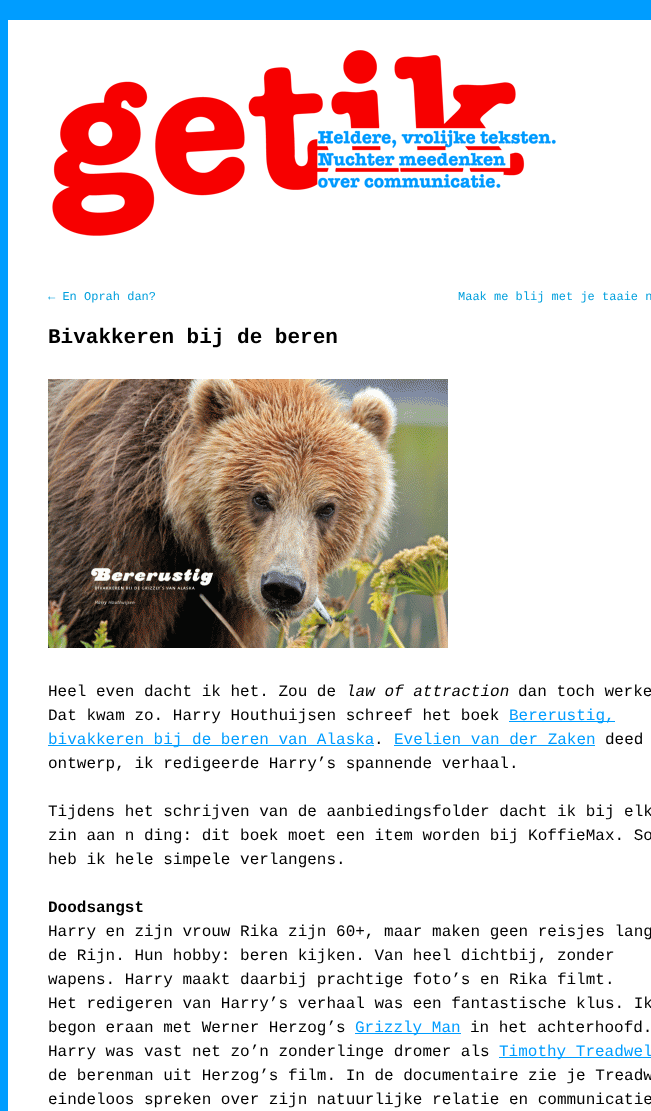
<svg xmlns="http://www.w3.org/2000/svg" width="651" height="1111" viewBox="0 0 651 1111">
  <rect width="100%" height="100%" fill="#009dff"/>
  <path d="M8 20h643v1091H8z" fill="#fff"/>
  <image x="52" y="50" width="504" height="186" href="img/1.png"/>
  <image x="48" y="379" width="400" height="269" href="img/2.png"/>
  <path d="M509 721h106v1H509z" fill="#009dff"/>
  <path d="M48 745h326v1H48z" fill="#009dff"/>
  <path d="M394 745h201v1H394z" fill="#009dff"/>
  <path d="M355 1033h106v1H355z" fill="#009dff"/>
  <path d="M499 1057h152v1H499z" fill="#009dff"/>
  <g font-family="Liberation Mono" font-size="12" fill="#009fdd">
    <text x="48" y="300">← En Oprah dan?</text>
    <text x="458" y="300">Maak me blij met je taaie n</text>
  </g>
  <text x="48" y="343" font-family="Liberation Mono" font-size="21" font-weight="bold" fill="#000">Bivakkeren bij de beren</text>
  <text x="48" y="696" font-family="Liberation Mono" font-size="16" fill="#000">Heel even dacht ik het. Zou de</text>
  <text x="346" y="696" font-family="Liberation Mono" font-size="16" font-style="italic" fill="#000">law of attraction</text>
  <g font-family="Liberation Mono" font-size="16" fill="#000">
    <text x="518" y="696">dan toch werke</text>
    <text x="48" y="720">Dat kwam zo. Harry Houthuijsen schreef het boek</text>
  </g>
  <g font-family="Liberation Mono" font-size="16" fill="#009dff">
    <text x="509" y="720">Bererustig,</text>
    <text x="48" y="744">bivakkeren bij de beren van Alaska</text>
  </g>
  <text x="374" y="744" font-family="Liberation Mono" font-size="16" fill="#000">.</text>
  <text x="394" y="744" font-family="Liberation Mono" font-size="16" fill="#009dff">Evelien van der Zaken</text>
  <g font-family="Liberation Mono" font-size="16" fill="#000">
    <text x="605" y="744">deed</text>
    <text x="48" y="768">ontwerp, ik redigeerde Harry’s spannende verhaal.</text>
    <text x="48" y="816">Tijdens het schrijven van de aanbiedingsfolder dacht ik bij elk</text>
    <text x="48" y="840">zin aan n ding: dit boek moet een item worden bij KoffieMax. So</text>
    <text x="48" y="864">heb ik hele simpele verlangens.</text>
  </g>
  <text x="48" y="912" font-family="Liberation Mono" font-size="16" font-weight="bold" fill="#000">Doodsangst</text>
  <g font-family="Liberation Mono" font-size="16" fill="#000">
    <text x="48" y="936">Harry en zijn vrouw Rika zijn 60+, maar maken geen reisjes lang</text>
    <text x="48" y="960">de Rijn. Hun hobby: beren kijken. Van heel dichtbij, zonder</text>
    <text x="48" y="984">wapens. Harry maakt daarbij prachtige foto’s en Rika filmt.</text>
    <text x="48" y="1008">Het redigeren van Harry’s verhaal was een fantastische klus. Ik</text>
    <text x="48" y="1032">begon eraan met Werner Herzog’s</text>
  </g>
  <text x="355" y="1032" font-family="Liberation Mono" font-size="16" fill="#009dff">Grizzly Man</text>
  <g font-family="Liberation Mono" font-size="16" fill="#000">
    <text x="470" y="1032">in het achterhoofd.</text>
    <text x="48" y="1056">Harry was vast net zo’n zonderlinge dromer als</text>
  </g>
  <text x="499" y="1056" font-family="Liberation Mono" font-size="16" fill="#009dff">Timothy Treadwel</text>
  <g font-family="Liberation Mono" font-size="16" fill="#000">
    <text x="48" y="1080">de berenman uit Herzog’s film. In de documentaire zie je Treadw</text>
    <text x="48" y="1104">eindeloos spreken over zijn natuurlijke relatie en communicatie</text>
  </g>
</svg>
